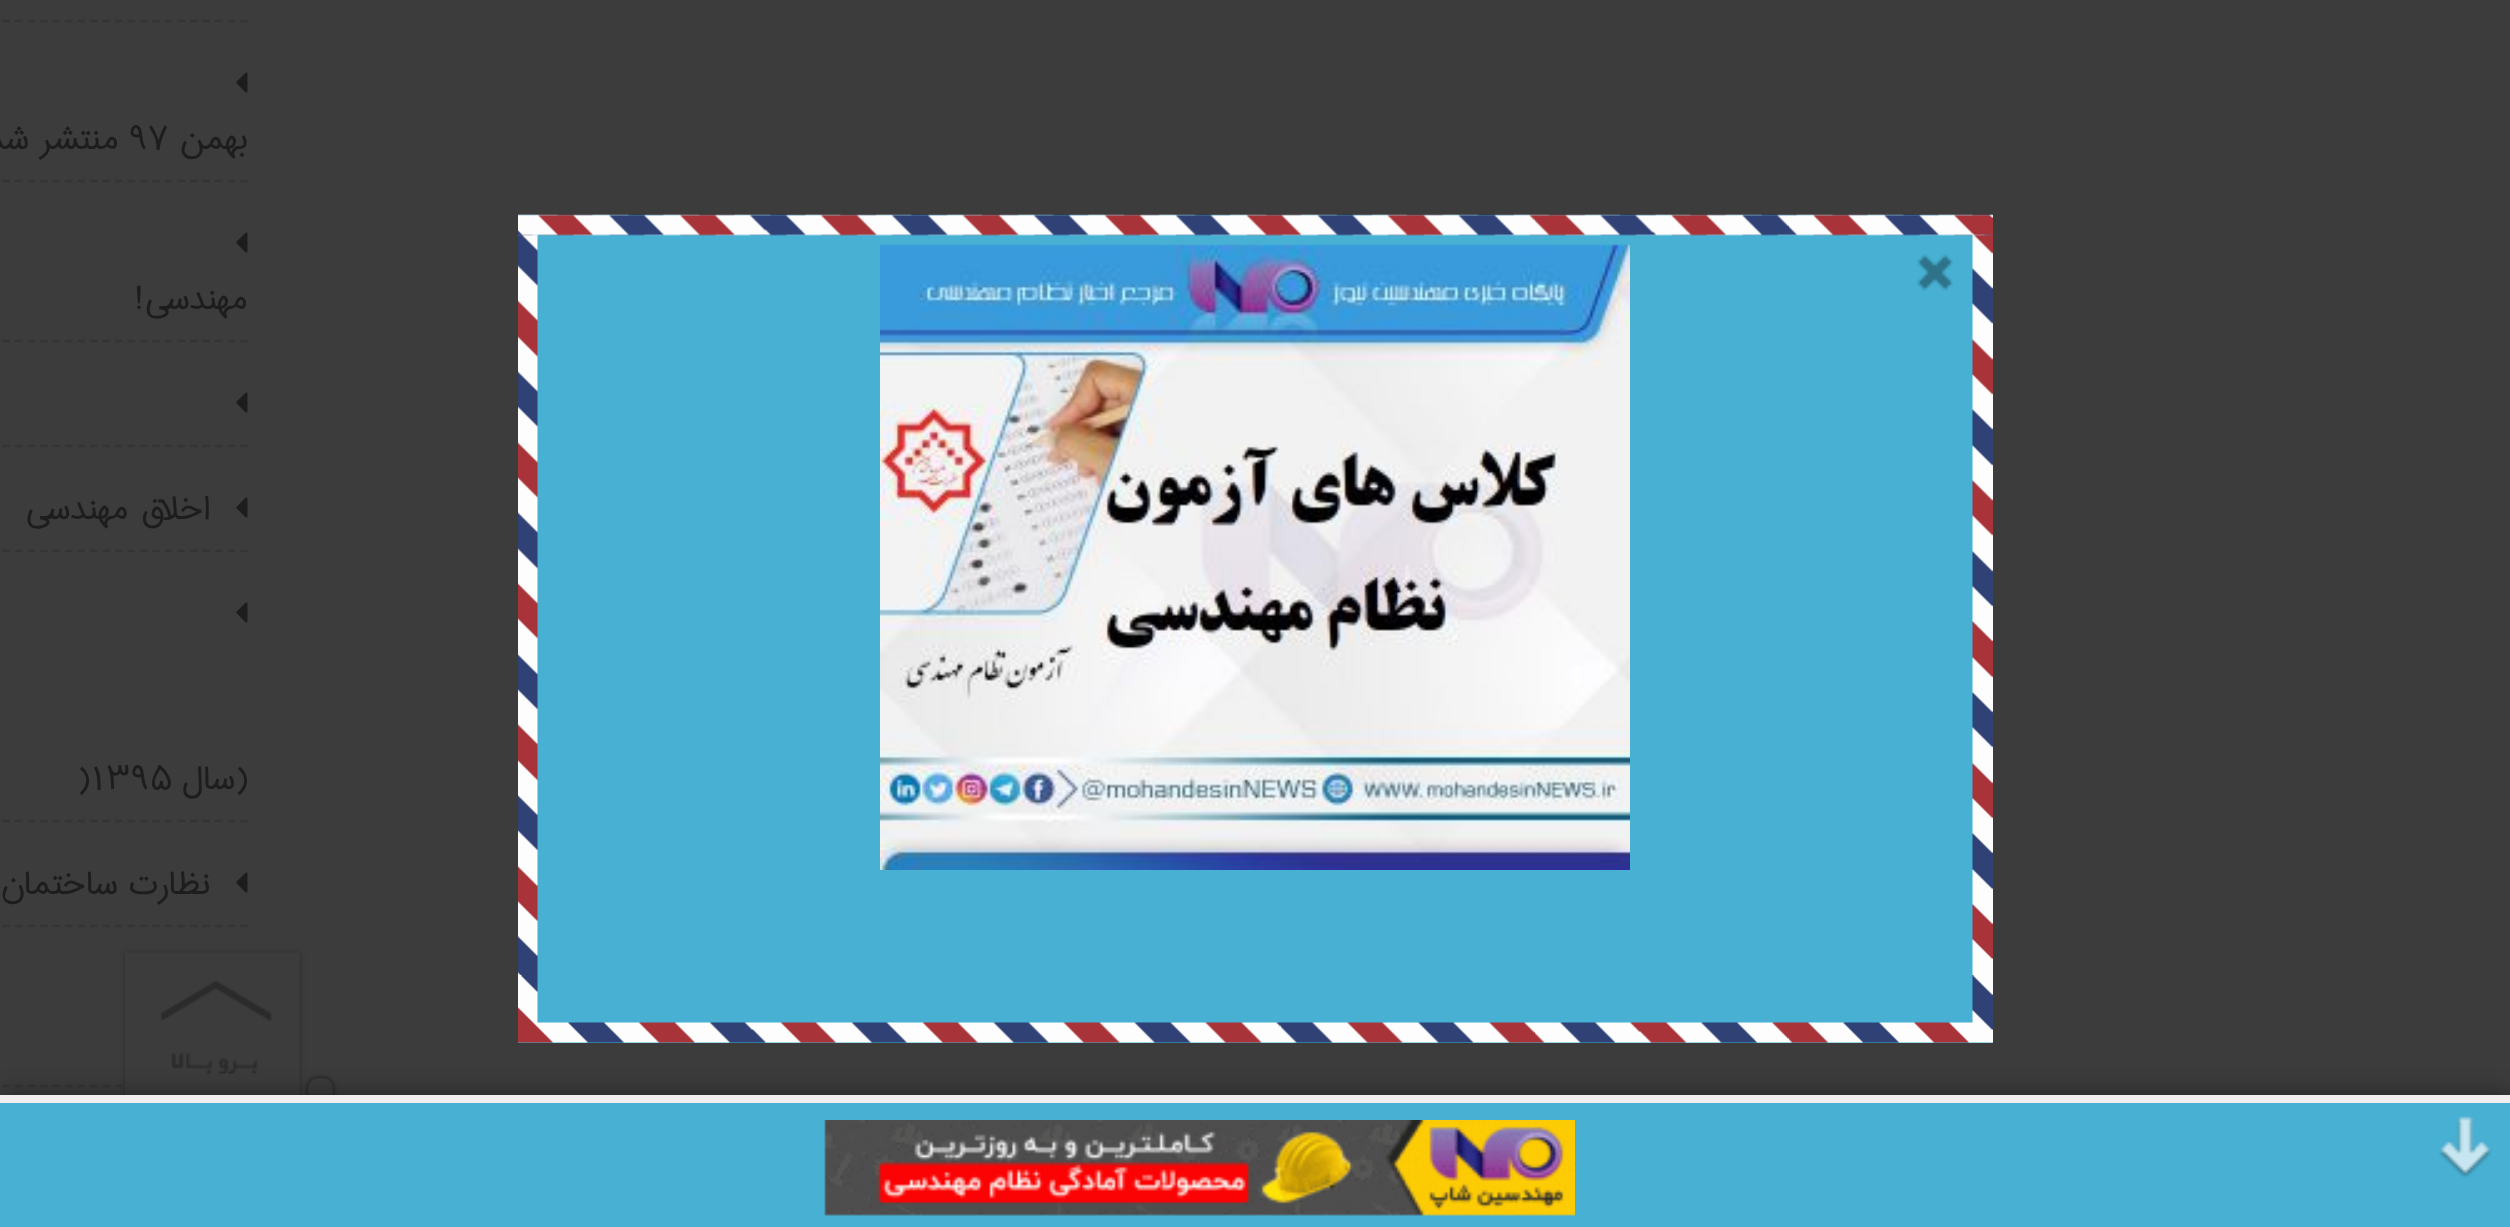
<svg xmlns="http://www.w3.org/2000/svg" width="2510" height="1227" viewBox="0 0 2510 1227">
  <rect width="100%" height="100%" fill="#3c3c3c"/>
  <path d="M518 215h1475v828H518z" fill="#47b0d3"/>
  <image x="518" y="214" width="1475" height="829" href="img/1.png"/>
  <image x="1917" y="254" width="36" height="37" href="img/2.png"/>
  <image x="880" y="244" width="750" height="626" href="img/3.png"/>
  <path d="M-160 21H247.5" fill="none" stroke="#343434" stroke-width="2.5" stroke-dasharray="7.5 5"/>
  <path d="M-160 181H247.5" fill="none" stroke="#343434" stroke-width="2.5" stroke-dasharray="7.5 5"/>
  <image x="236" y="72" width="12" height="21" href="img/4.png"/>
  <path d="M-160 341H247.5" fill="none" stroke="#343434" stroke-width="2.5" stroke-dasharray="7.5 5"/>
  <image x="236" y="232" width="12" height="21" href="img/4.png"/>
  <path d="M-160 446H247.5" fill="none" stroke="#343434" stroke-width="2.5" stroke-dasharray="7.5 5"/>
  <image x="236" y="392" width="12" height="21" href="img/4.png"/>
  <path d="M-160 551H247.5" fill="none" stroke="#343434" stroke-width="2.5" stroke-dasharray="7.5 5"/>
  <image x="236" y="497" width="12" height="21" href="img/4.png"/>
  <path d="M-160 821H247.5" fill="none" stroke="#343434" stroke-width="2.5" stroke-dasharray="7.5 5"/>
  <image x="236" y="602" width="12" height="21" href="img/4.png"/>
  <path d="M-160 926H247.5" fill="none" stroke="#343434" stroke-width="2.5" stroke-dasharray="7.5 5"/>
  <image x="236" y="872" width="12" height="21" href="img/4.png"/>
  <path d="M-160 1086H247.5" fill="none" stroke="#343434" stroke-width="2.5" stroke-dasharray="7.5 5"/>
  <rect x="308" y="1078" width="25" height="25" rx="10" fill="#161616" filter="blur(2.5px)"/>
  <rect x="308" y="1078" width="25" height="25" rx="10" fill="#3b3b3b"/>
  <path d="M125 953h175v150H125z" fill="#2b2b2b" filter="blur(2.5px)"/>
  <path d="M160 953h140v142H160z" fill="#2b2b2b"/>
  <image x="125" y="952" width="175" height="143" href="img/5.png"/>
  <path d="M0 1095h2510v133H0z" fill="#00000066" filter="blur(12px)"/>
  <path d="M0 1103h2510v124H0z" fill="#47b0d3"/>
  <path d="M0 1095h2510v8H0z" fill="#f3eeee"/>
  <image x="2439" y="1115" width="53" height="63" href="img/6.png"/>
  <image x="824" y="1120" width="751" height="96" href="img/7.png"/>
  <text x="247" y="149" font-family="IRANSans" font-size="42.5" direction="rtl" fill="#1d1d1d">بهمن</text>
  <text x="128" y="149" font-family="IRANSans" font-size="42.5" fill="#1d1d1d">۹۷</text>
  <g font-family="IRANSans" font-size="42.5" direction="rtl" fill="#1d1d1d">
    <text x="118" y="149">منتشر شد</text>
    <text x="247" y="309">مهندسی!</text>
    <text x="210" y="519">اخلاق مهندسي</text>
    <text x="247" y="789">(سال</text>
  </g>
  <text x="77" y="789" font-family="IRANSans" font-size="42.5" fill="#1d1d1d">)۱۳۹۵</text>
  <text x="210" y="894" font-family="IRANSans" font-size="42.5" direction="rtl" fill="#1d1d1d">نظارت ساختمان</text>
</svg>
